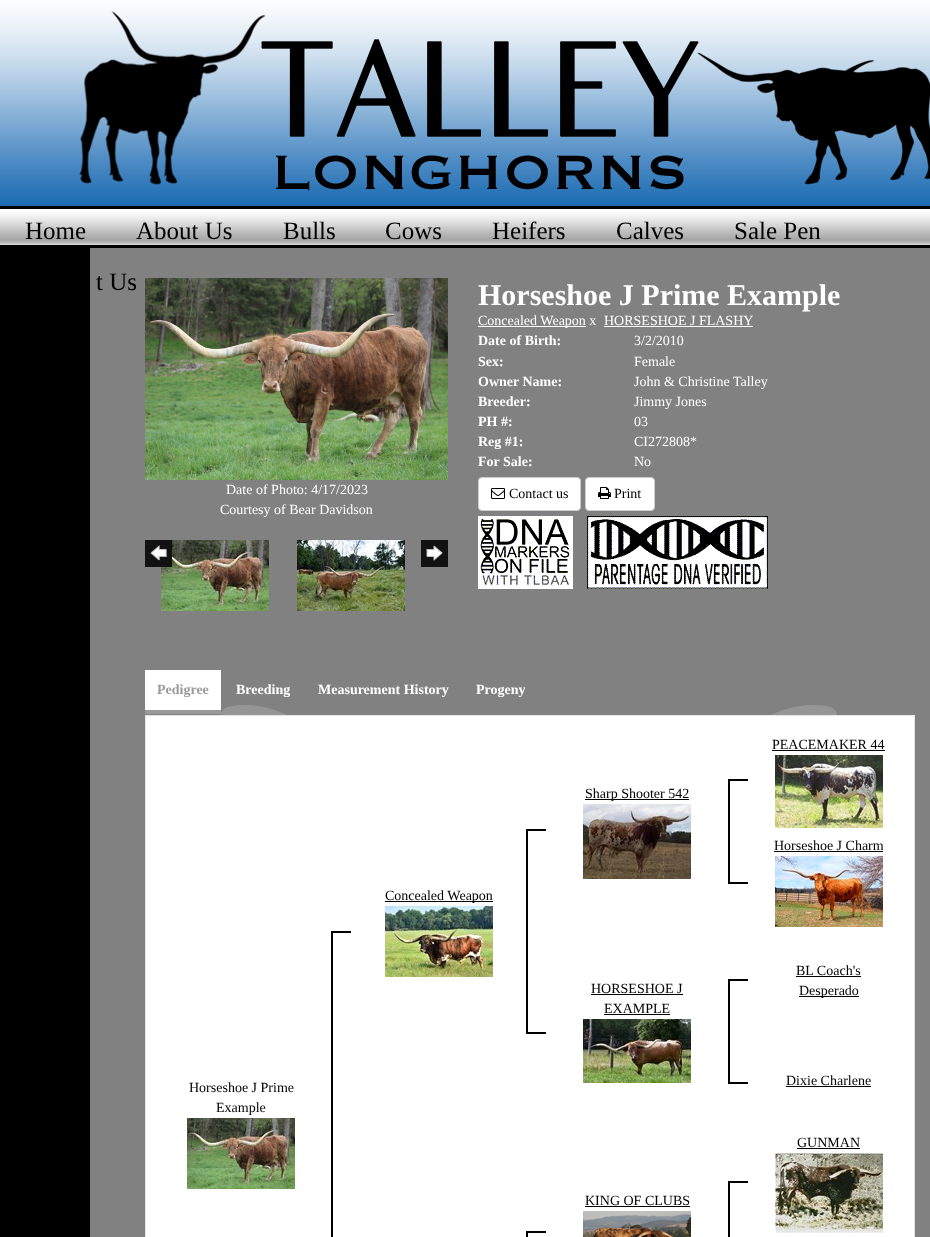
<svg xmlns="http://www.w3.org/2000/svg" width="930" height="1237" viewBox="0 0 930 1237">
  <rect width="100%" height="100%" fill="#000"/>
  <image x="0" y="0" width="930" height="245" href="img/1.png"/>
  <image x="79" y="11" width="851" height="180" href="img/2.png"/>
  <path d="M90 248h840v989H90z" fill="#818181"/>
  <image x="220" y="705" width="618" height="10" href="img/3.png"/>
  <image x="145" y="278" width="303" height="202" href="img/4.png"/>
  <image x="161" y="540" width="108" height="71" href="img/6.png"/>
  <image x="145" y="540" width="27" height="27" href="img/5.png"/>
  <image x="297" y="540" width="108" height="71" href="img/7.png"/>
  <image x="421" y="540" width="27" height="27" href="img/8.png"/>
  <path d="M478 326h108v1H478z" fill="#fff"/>
  <path d="M604 326h149v1H604z" fill="#fff"/>
  <rect x="478.5" y="477.5" width="102" height="33" rx="3.5" fill="#fff" stroke="#ccc"/>
  <image x="491" y="488" width="14" height="11" href="img/9.png"/>
  <rect x="585.5" y="477.5" width="69" height="33" rx="3.5" fill="#fff" stroke="#ccc"/>
  <image x="598" y="487" width="13" height="12" href="img/10.png"/>
  <image x="478" y="516" width="95" height="73" href="img/11.png"/>
  <image x="587" y="516" width="181" height="73" href="img/12.png"/>
  <path d="M145 715h770v1H145z" fill="#e5e5e5"/>
  <path d="M145 710h76v4H145z" fill="#9b9999"/>
  <path d="M145 670h76v40H145z" fill="#fff"/>
  <path d="M146 716h768v521H146z" fill="#fff"/>
  <path d="M145 716H915V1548C915 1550 913 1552 911 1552H149C147 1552 145 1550 145 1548ZM146 716H914V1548C914 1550 913 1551 911 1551H149C147 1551 146 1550 146 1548Z" fill="#e5e5e5" fill-rule="evenodd"/>
  <path d="M772 750h113v1H772z" fill="#000"/>
  <image x="775" y="755" width="108" height="73" href="img/13.png"/>
  <path d="M585 799h104v1H585z" fill="#000"/>
  <image x="583" y="804" width="108" height="75" href="img/14.png"/>
  <path d="M728 779h20v2H728z" fill="#000"/>
  <path d="M728 882h20v2H728z" fill="#000"/>
  <path d="M728 779h2v105H728z" fill="#000"/>
  <path d="M385 901h108v1H385z" fill="#000"/>
  <image x="385" y="906" width="108" height="71" href="img/15.png"/>
  <path d="M526 829h20v2H526z" fill="#000"/>
  <path d="M526 1032h20v2H526z" fill="#000"/>
  <path d="M526 829h2v205H526z" fill="#000"/>
  <image x="187" y="1118" width="108" height="71" href="img/6.png"/>
  <path d="M331 931h20v2H331z" fill="#000"/>
  <path d="M331 931h2v306H331z" fill="#000"/>
  <path d="M774 851h109v1H774z" fill="#000"/>
  <image x="775" y="856" width="108" height="71" href="img/16.png"/>
  <path d="M591 994h92v1H591z" fill="#000"/>
  <path d="M604 1014h66v1H604z" fill="#000"/>
  <image x="583" y="1019" width="108" height="64" href="img/17.png"/>
  <path d="M728 979h20v2H728z" fill="#000"/>
  <path d="M728 1082h20v2H728z" fill="#000"/>
  <path d="M728 979h2v105H728z" fill="#000"/>
  <path d="M796 976h65v1H796z" fill="#000"/>
  <path d="M799 996h60v1H799z" fill="#000"/>
  <path d="M786 1086h85v1H786z" fill="#000"/>
  <path d="M797 1148h63v1H797z" fill="#000"/>
  <image x="775" y="1153" width="108" height="80" href="img/18.png"/>
  <path d="M585 1206h105v1H585z" fill="#000"/>
  <image x="583" y="1211" width="108" height="26" href="img/19.png"/>
  <path d="M728 1181h20v2H728z" fill="#000"/>
  <path d="M728 1181h2v56H728z" fill="#000"/>
  <path d="M526 1231h20v2H526z" fill="#000"/>
  <path d="M526 1231h2v6H526z" fill="#000"/>
  <g font-family="Liberation Serif" font-size="25" fill="#000">
    <text x="25" y="239">Home</text>
    <text x="136" y="239">About Us</text>
    <text x="283" y="239">Bulls</text>
    <text x="385" y="239">Cows</text>
    <text x="492" y="239">Heifers</text>
    <text x="616" y="239">Calves</text>
    <text x="734" y="239">Sale Pen</text>
    <text x="96" y="290">t Us</text>
  </g>
  <g font-family="Liberation Serif" font-size="14" fill="#fff">
    <text x="226" y="494">Date of Photo: 4/17/2023</text>
    <text x="220" y="514">Courtesy of Bear Davidson</text>
  </g>
  <text x="478" y="305" font-family="Liberation Serif" font-size="30" font-weight="bold" fill="#fff">Horseshoe J Prime Example</text>
  <g font-family="Liberation Serif" font-size="14" fill="#fff">
    <text x="478" y="325">Concealed Weapon x</text>
    <text x="604" y="325">HORSESHOE J FLASHY</text>
  </g>
  <text x="478" y="345" font-family="Liberation Serif" font-size="14" font-weight="bold" fill="#fff">Date of Birth:</text>
  <text x="634" y="345" font-family="Liberation Serif" font-size="14" fill="#fff">3/2/2010</text>
  <text x="478" y="366" font-family="Liberation Serif" font-size="14" font-weight="bold" fill="#fff">Sex:</text>
  <text x="634" y="366" font-family="Liberation Serif" font-size="14" fill="#fff">Female</text>
  <text x="478" y="386" font-family="Liberation Serif" font-size="14" font-weight="bold" fill="#fff">Owner Name:</text>
  <text x="634" y="386" font-family="Liberation Serif" font-size="14" fill="#fff">John &amp; Christine Talley</text>
  <text x="478" y="406" font-family="Liberation Serif" font-size="14" font-weight="bold" fill="#fff">Breeder:</text>
  <text x="634" y="406" font-family="Liberation Serif" font-size="14" fill="#fff">Jimmy Jones</text>
  <text x="478" y="426" font-family="Liberation Serif" font-size="14" font-weight="bold" fill="#fff">PH #:</text>
  <text x="634" y="426" font-family="Liberation Serif" font-size="14" fill="#fff">03</text>
  <text x="478" y="446" font-family="Liberation Serif" font-size="14" font-weight="bold" fill="#fff">Reg #1:</text>
  <text x="634" y="446" font-family="Liberation Serif" font-size="14" fill="#fff">CI272808*</text>
  <text x="478" y="466" font-family="Liberation Serif" font-size="14" font-weight="bold" fill="#fff">For Sale:</text>
  <text x="634" y="466" font-family="Liberation Serif" font-size="14" fill="#fff">No</text>
  <g font-family="Liberation Serif" font-size="14" fill="#000">
    <text x="509" y="498">Contact us</text>
    <text x="614" y="498">Print</text>
  </g>
  <text x="157" y="694" font-family="Liberation Serif" font-size="14" font-weight="bold" fill="#9b9999">Pedigree</text>
  <g font-family="Liberation Serif" font-size="14" font-weight="bold" fill="#fff">
    <text x="236" y="694">Breeding</text>
    <text x="318" y="694">Measurement History</text>
    <text x="476" y="694">Progeny</text>
  </g>
  <g font-family="Liberation Serif" font-size="14" fill="#000">
    <text x="772" y="749">PEACEMAKER 44</text>
    <text x="585" y="798">Sharp Shooter 542</text>
    <text x="385" y="900">Concealed Weapon</text>
    <text x="189" y="1092">Horseshoe J Prime</text>
    <text x="216" y="1112">Example</text>
    <text x="774" y="850">Horseshoe J Charm</text>
    <text x="591" y="993">HORSESHOE J</text>
    <text x="604" y="1013">EXAMPLE</text>
    <text x="796" y="975">BL Coach's</text>
    <text x="799" y="995">Desperado</text>
    <text x="786" y="1085">Dixie Charlene</text>
    <text x="797" y="1147">GUNMAN</text>
    <text x="585" y="1205">KING OF CLUBS</text>
  </g>
</svg>
